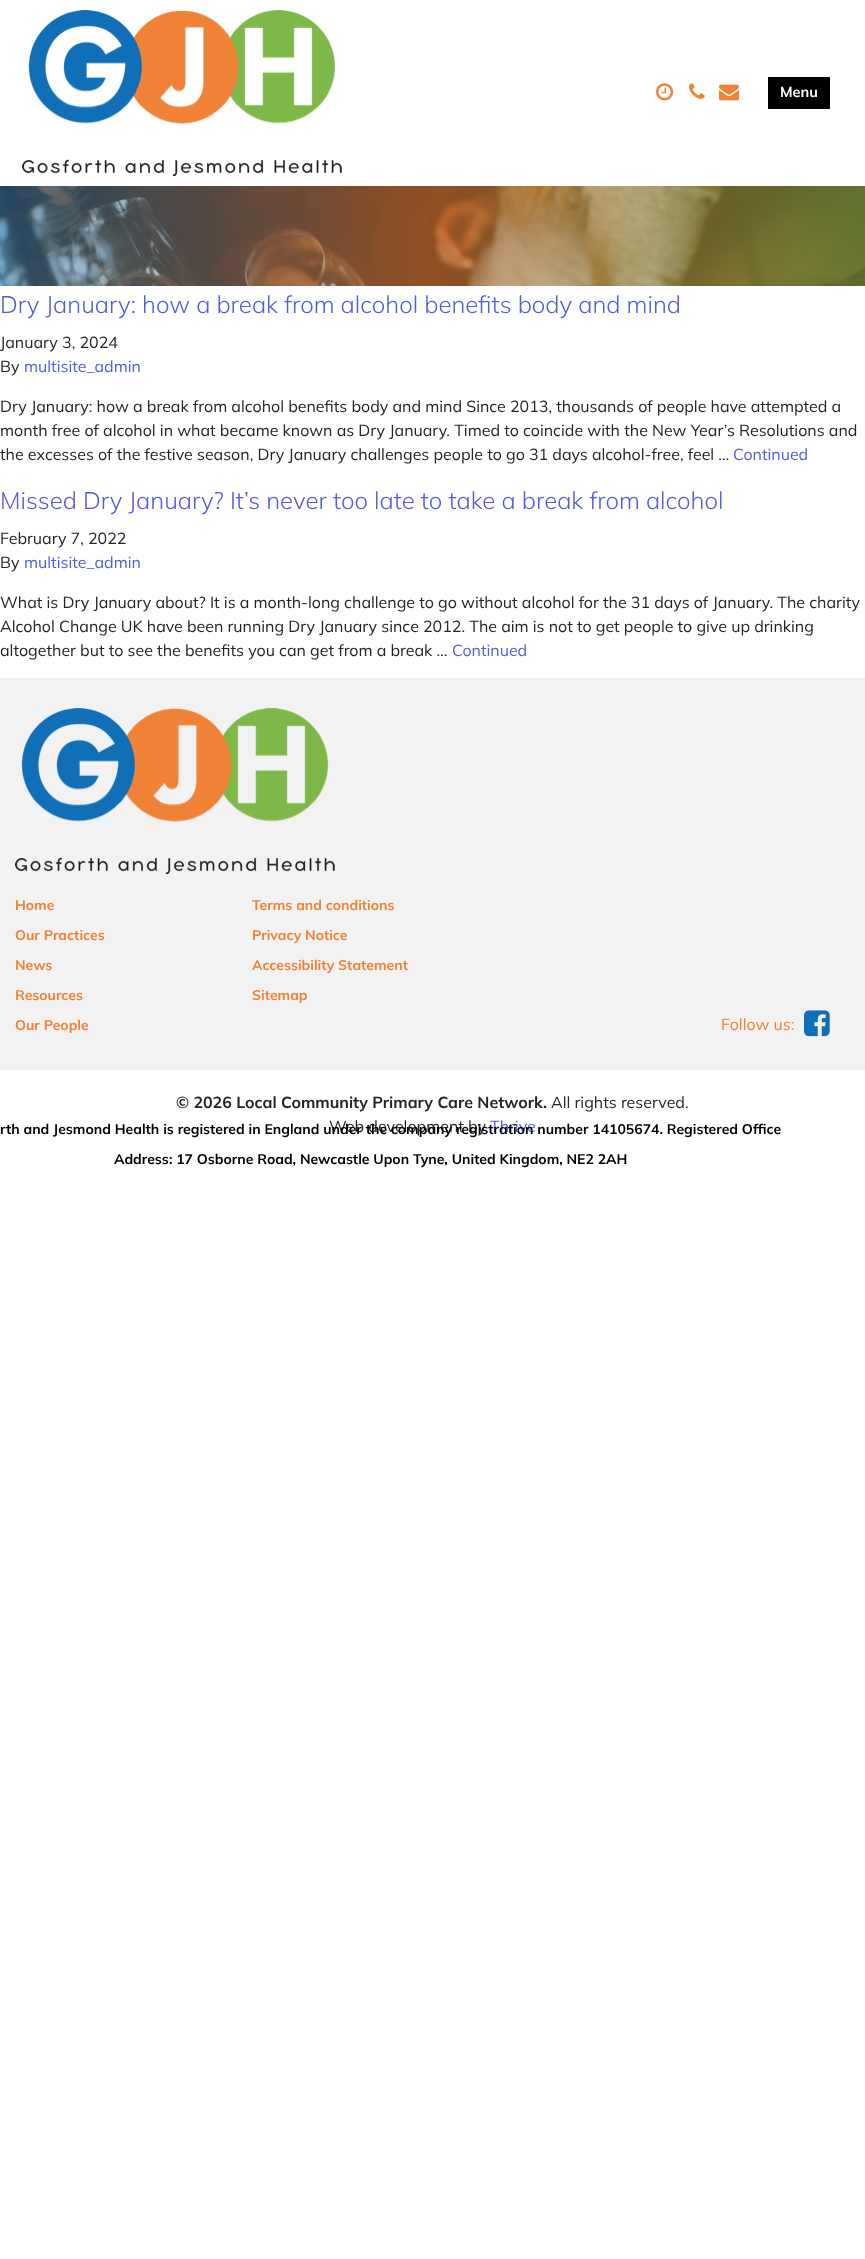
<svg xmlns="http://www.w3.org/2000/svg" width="865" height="2259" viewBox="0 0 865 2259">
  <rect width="100%" height="100%" fill="#fff"/>
  <image x="22" y="10" width="320" height="166" href="img/1.png"/>
  <image x="656" y="83" width="18" height="18" href="img/2.png"/>
  <image x="689" y="83" width="16" height="16" href="img/3.png"/>
  <image x="719" y="84" width="20" height="17" href="img/4.png"/>
  <path d="M768 77h62v32H768z" fill="#000"/>
  <image x="0" y="186" width="865" height="100" href="img/5.png"/>
  <path d="M0 678h865v392H0z" fill="#f2f2f2"/>
  <image x="15" y="708" width="320" height="166" href="img/6.png"/>
  <image x="804" y="1010" width="26" height="27" href="img/7.png"/>
  <text x="780" y="97" font-family="Mulish" font-size="14.5" font-weight="bold" fill="#fff">Menu</text>
  <text x="0" y="313" font-family="Mulish" font-size="24" font-weight="300" fill="#525ddc">Dry January: how a break from alcohol benefits body and mind</text>
  <g font-family="Mulish" font-size="16" fill="#212529">
    <text x="0" y="348">January 3, 2024</text>
    <text x="0" y="372">By</text>
  </g>
  <text x="24" y="372" font-family="Mulish" font-size="16" fill="#525ddc">multisite_admin</text>
  <g font-family="Mulish" font-size="16" fill="#212529">
    <text x="0" y="412">Dry January: how a break from alcohol benefits body and mind Since 2013, thousands of people have attempted a</text>
    <text x="0" y="436">month free of alcohol in what became known as Dry January. Timed to coincide with the New Year’s Resolutions and</text>
    <text x="0" y="460">the excesses of the festive season, Dry January challenges people to go 31 days alcohol-free, feel …</text>
  </g>
  <text x="733" y="460" font-family="Mulish" font-size="16" fill="#525ddc">Continued</text>
  <text x="0" y="509" font-family="Mulish" font-size="24" font-weight="300" fill="#525ddc">Missed Dry January? It’s never too late to take a break from alcohol</text>
  <g font-family="Mulish" font-size="16" fill="#212529">
    <text x="0" y="544">February 7, 2022</text>
    <text x="0" y="568">By</text>
  </g>
  <text x="24" y="568" font-family="Mulish" font-size="16" fill="#525ddc">multisite_admin</text>
  <g font-family="Mulish" font-size="16" fill="#212529">
    <text x="0" y="608">What is Dry January about? It is a month-long challenge to go without alcohol for the 31 days of January. The charity</text>
    <text x="0" y="632">Alcohol Change UK have been running Dry January since 2012. The aim is not to get people to give up drinking</text>
    <text x="0" y="656">altogether but to see the benefits you can get from a break …</text>
  </g>
  <text x="452" y="656" font-family="Mulish" font-size="16" fill="#525ddc">Continued</text>
  <g font-family="Mulish" font-size="14" font-weight="bold" fill="#ef8236">
    <text x="252" y="910">Terms and conditions</text>
    <text x="252" y="940">Privacy Notice</text>
    <text x="252" y="970">Accessibility Statement</text>
    <text x="252" y="1000">Sitemap</text>
  </g>
  <text x="114" y="1164" font-family="Mulish" font-size="14" font-weight="bold" fill="#000">Address: 17 Osborne Road, Newcastle Upon Tyne, United Kingdom, NE2 2AH</text>
  <g font-family="Mulish" font-size="14" font-weight="bold" fill="#ef8236">
    <text x="15" y="910">Home</text>
    <text x="15" y="940">Our Practices</text>
    <text x="15" y="970">News</text>
    <text x="15" y="1000">Resources</text>
    <text x="15" y="1030">Our People</text>
  </g>
  <text x="721" y="1030" font-family="Mulish" font-size="16" fill="#ef8236">Follow us:</text>
  <text x="176" y="1108" font-family="Mulish" font-size="16" font-weight="bold" fill="#212529">© 2026 Local Community Primary Care Network.</text>
  <g font-family="Mulish" font-size="16" fill="#212529">
    <text x="551" y="1108">All rights reserved.</text>
    <text x="329" y="1132">Web development by</text>
  </g>
  <text x="490" y="1132" font-family="Mulish" font-size="16" fill="#525ddc">Thrive</text>
  <text x="0" y="1134" font-family="Mulish" font-size="14" font-weight="bold" fill="#000">rth and Jesmond Health is registered in England under the company registration number 14105674. Registered Office</text>
</svg>
